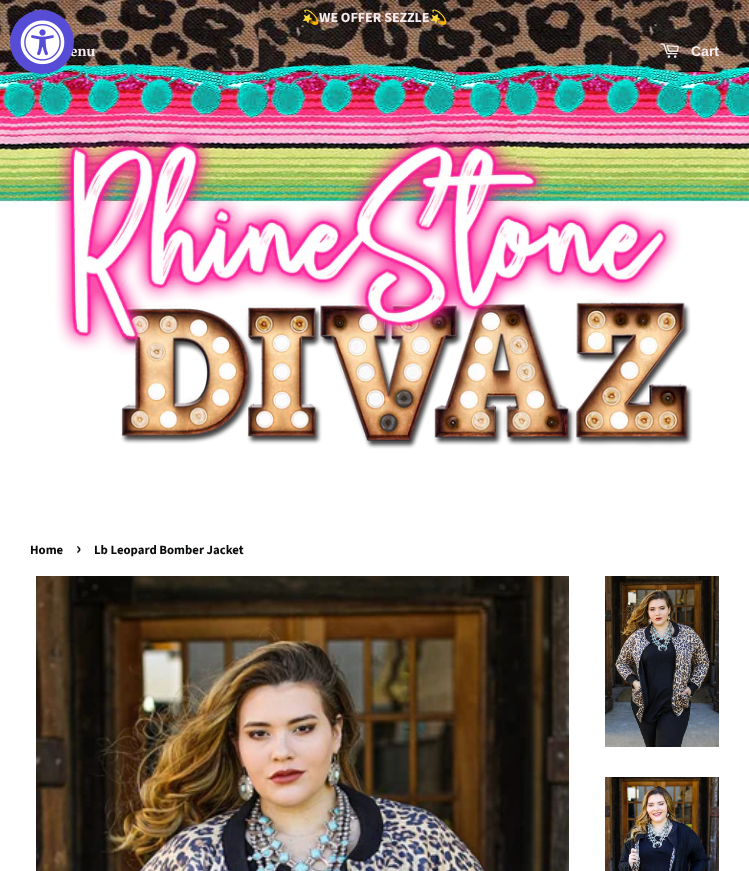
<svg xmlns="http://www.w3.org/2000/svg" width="749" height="871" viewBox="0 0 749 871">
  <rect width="100%" height="100%" fill="#fff"/>
  <image x="0" y="0" width="749" height="208" href="img/1.png"/>
  <image x="660" y="43" width="19" height="15" href="img/3.png"/>
  <image x="55" y="129" width="638" height="320" href="img/4.png"/>
  <image x="36" y="576" width="533" height="295" href="img/5.png"/>
  <image x="605" y="576" width="114" height="171" href="img/6.png"/>
  <image x="605" y="777" width="114" height="94" href="img/7.png"/>
  <text x="302" y="22" font-family="Noto Color Emoji" font-size="14" font-weight="bold" fill="#f5ecef">💫</text>
  <text x="319" y="22" font-family="Source Sans Pro" font-size="14" font-weight="bold" fill="#f5ecef">WE OFFER SEZZLE</text>
  <text x="430" y="22" font-family="Noto Color Emoji" font-size="14" font-weight="bold" fill="#f5ecef">💫</text>
  <text x="70" y="56" font-family="PT Serif" font-size="14" font-weight="bold" fill="#f5ecef">enu</text>
  <circle cx="42" cy="42" r="32" fill="#574cd5"/>
  <image x="20" y="20" width="45" height="45" href="img/2.png"/>
  <text x="691" y="56" font-family="Liberation Sans" font-size="14" font-weight="bold" fill="#f5ecef">Cart</text>
  <text x="30" y="554" font-family="Source Sans Pro" font-size="12.75" font-weight="bold" fill="#0b0c0c">Home</text>
  <text x="76" y="554" font-family="Source Sans Pro" font-size="18" font-weight="bold" fill="#0b0c0c">›</text>
  <text x="94" y="554" font-family="Source Sans Pro" font-size="12.75" font-weight="bold" fill="#0b0c0c">Lb Leopard Bomber Jacket</text>
</svg>
